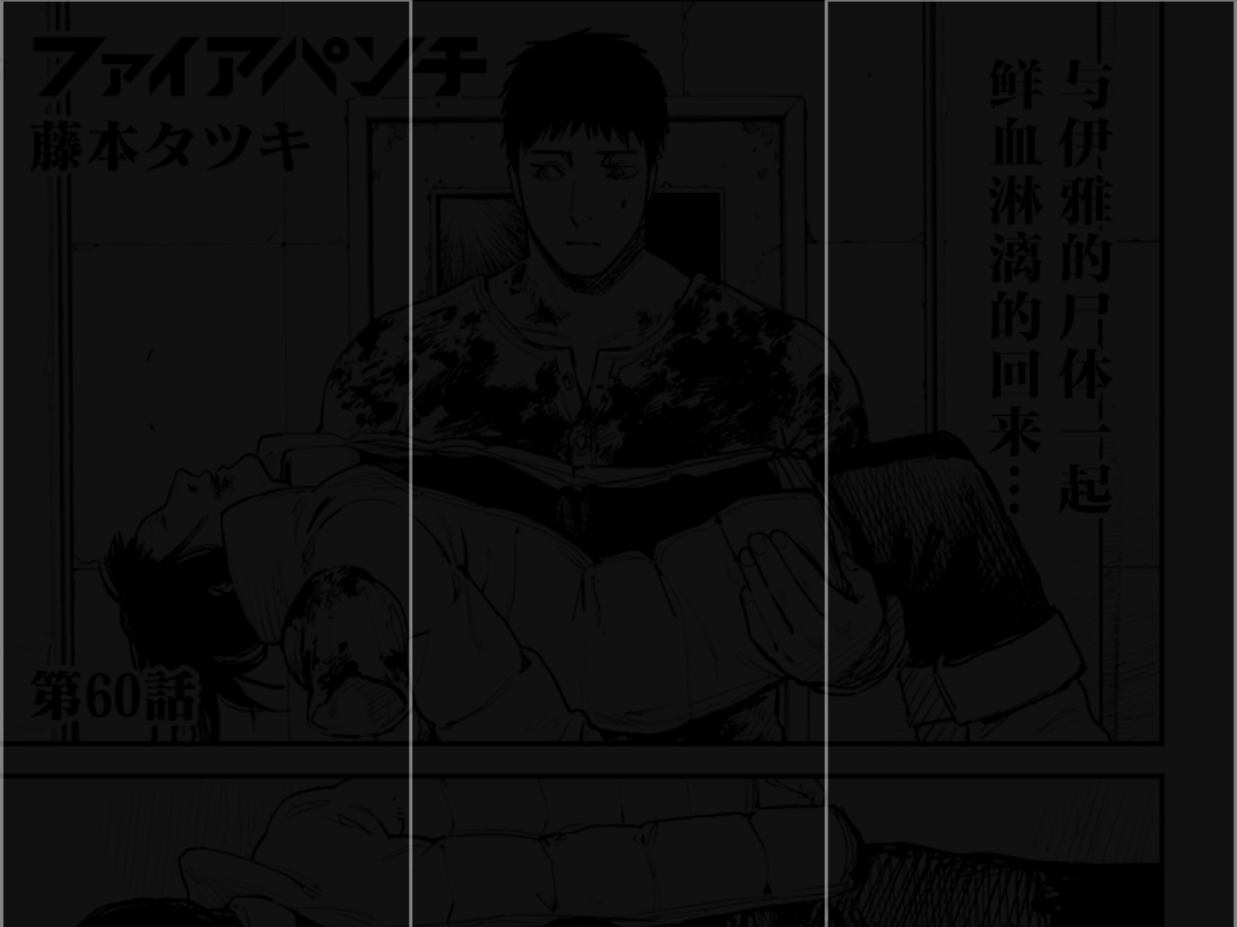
<svg xmlns="http://www.w3.org/2000/svg" width="1237" height="927" viewBox="0 0 1237 927">
  <rect width="100%" height="100%" fill="#fff"/>
  <image x="0" y="0" width="1167" height="927" href="img/1.png"/>
  <image x="0" y="0" width="1237" height="927" href="img/2.png"/>
</svg>
